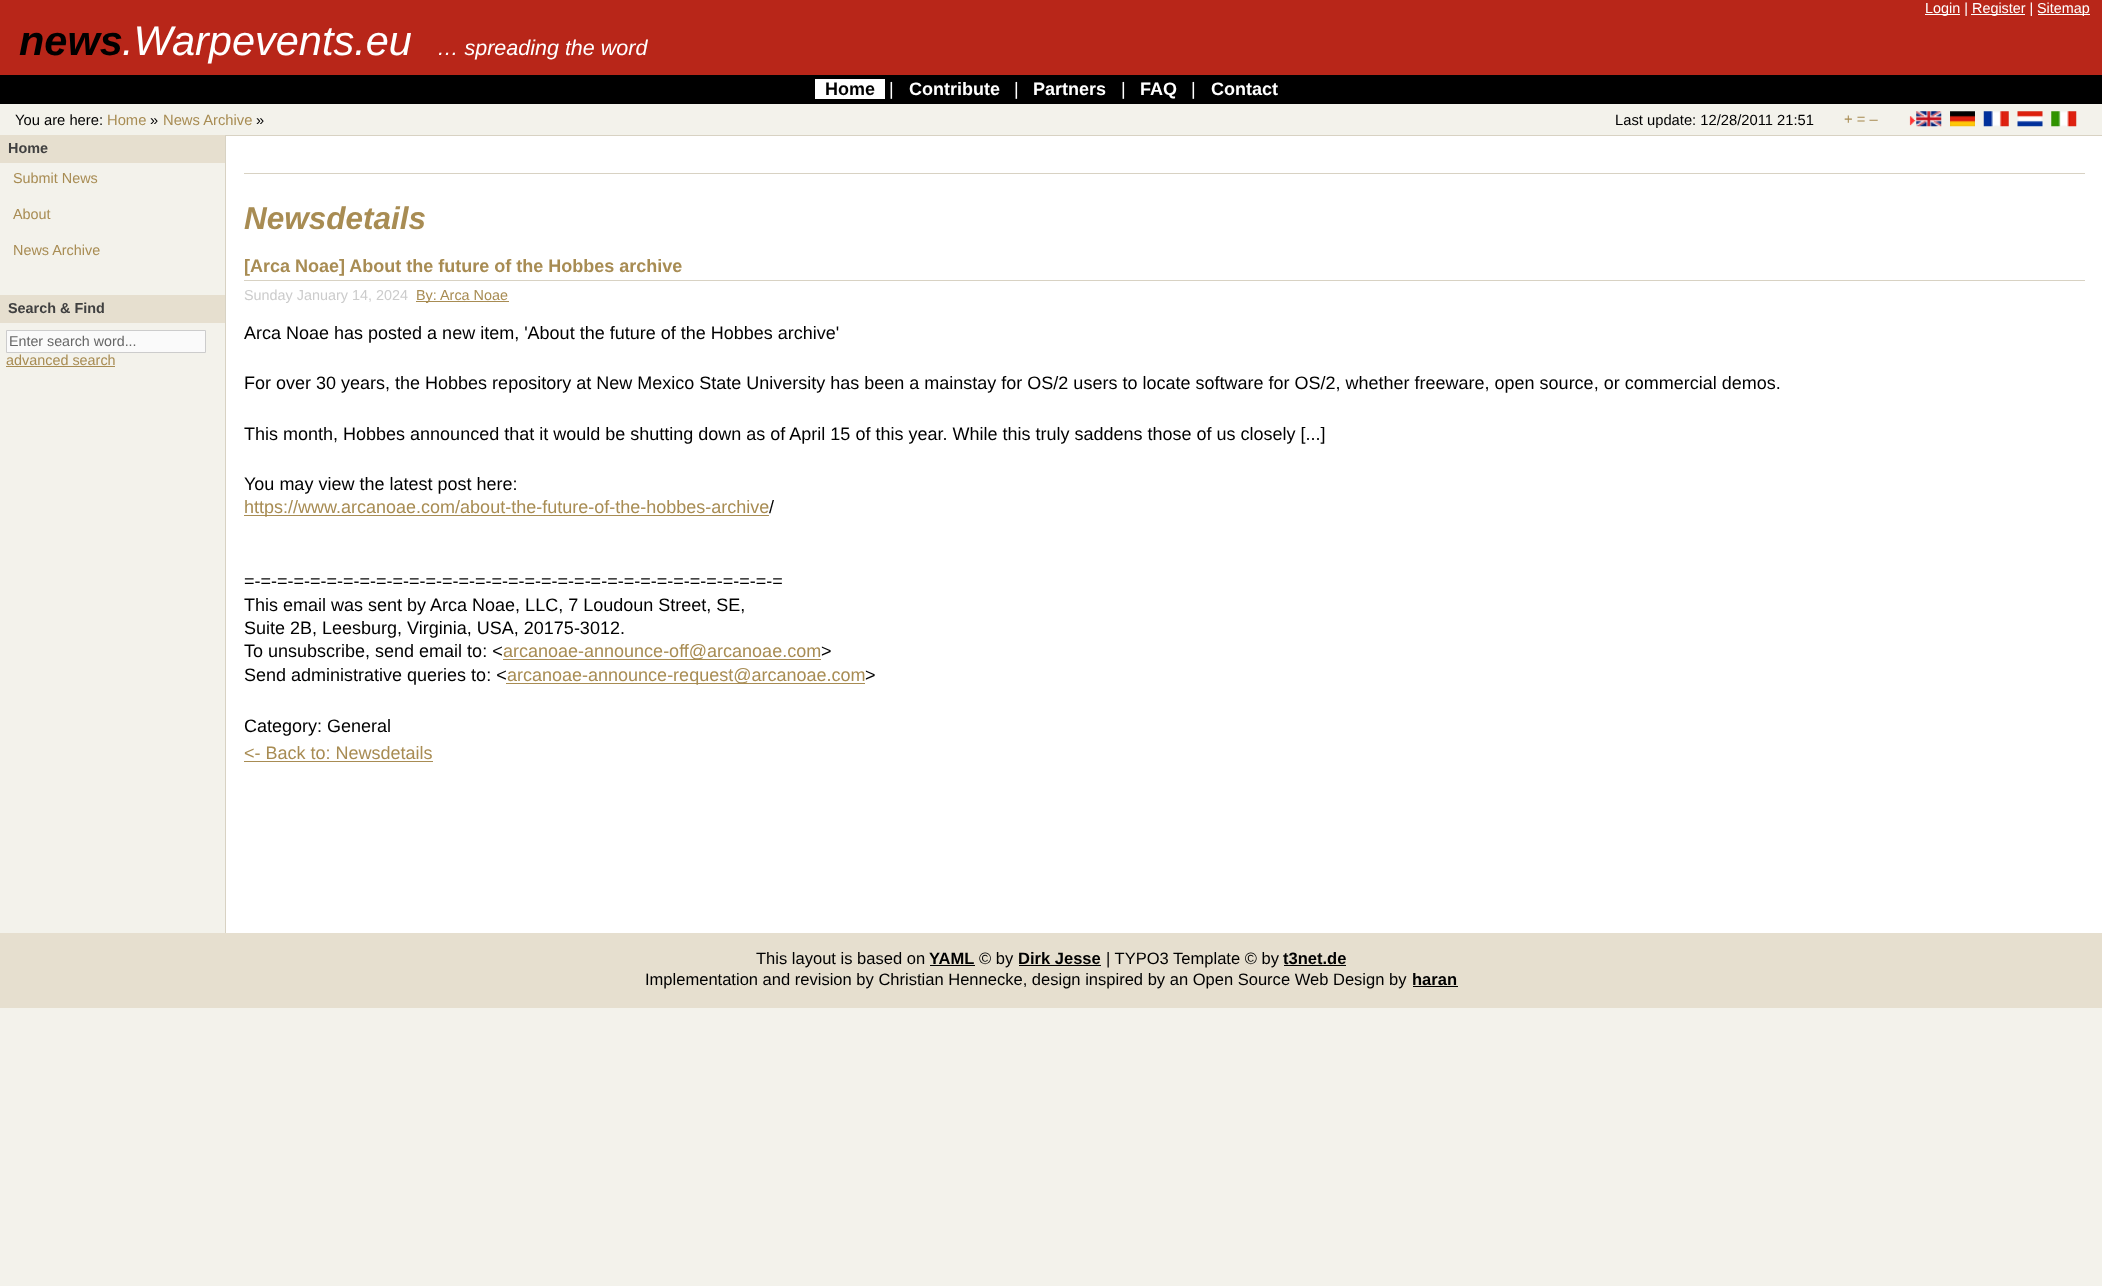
<svg xmlns="http://www.w3.org/2000/svg" width="2102" height="1286" viewBox="0 0 2102 1286">
  <rect width="100%" height="100%" fill="#f3f2eb"/>
  <path d="M0 0h2102v75H0z" fill="#b82619"/>
  <path d="M1925 14h35v1H1925z" fill="#fff"/>
  <path d="M1971 14h54v1H1971z" fill="#fff"/>
  <path d="M2038 14h52v1H2038z" fill="#fff"/>
  <path d="M0 75h2102v29H0z" fill="#000"/>
  <path d="M815 79h70v20H815z" fill="#fff"/>
  <image x="1909" y="116" width="7" height="10" href="img/1.png"/>
  <image x="1916" y="111" width="26" height="16" href="img/2.png"/>
  <image x="1950" y="111" width="25" height="16" href="img/3.png"/>
  <image x="1983" y="111" width="26" height="16" href="img/4.png"/>
  <image x="2017" y="111" width="26" height="16" href="img/5.png"/>
  <image x="2051" y="111" width="26" height="16" href="img/6.png"/>
  <path d="M0 135h225v28H0z" fill="#e6dfcf"/>
  <path d="M0 295h225v28H0z" fill="#e6dfcf"/>
  <path d="M6.5 330.5h199v22H6.5z" fill="#fafafa" stroke="#ccc"/>
  <path d="M6 366h109v1H6z" fill="#a88c53"/>
  <path d="M226 136h1876v797H226z" fill="#fff"/>
  <path d="M225 135h1877v1H225z" fill="#d8d2c3"/>
  <path d="M225 135h1v798H225z" fill="#d8d2c3"/>
  <path d="M244 173h1841v1H244z" fill="#d8d2c3"/>
  <path d="M244 280h1841v1H244z" fill="#d8d2c3"/>
  <path d="M416 301h93v1H416z" fill="#a88c53"/>
  <path d="M244 515h525v1H244z" fill="#a88c53"/>
  <path d="M503 659h318v1H503z" fill="#a88c53"/>
  <path d="M244 761h189v1H244z" fill="#a88c53"/>
  <path d="M0 933h2102v75H0z" fill="#e6dfcf"/>
  <path d="M930 965h45v1H930z" fill="#000"/>
  <path d="M1019 965h82v1H1019z" fill="#000"/>
  <path d="M1284 965h62v1H1284z" fill="#000"/>
  <path d="M1413 986h45v1H1413z" fill="#000"/>
  <g font-family="Liberation Sans" font-size="14.4" fill="#fff">
    <text x="1925" y="13">Login |</text>
    <text x="1972" y="13">Register |</text>
    <text x="2037" y="13">Sitemap</text>
  </g>
  <text x="19" y="55" font-family="Liberation Sans" font-size="41.5" font-weight="bold" font-style="italic" fill="#000">news</text>
  <text x="122" y="55" font-family="Liberation Sans" font-size="41.5" font-style="italic" fill="#fff">.Warpevents.eu</text>
  <text x="437" y="55" font-family="Liberation Sans" font-size="21.5" font-style="italic" fill="#fff">… spreading the word</text>
  <text x="825" y="95" font-family="Liberation Sans" font-size="18" font-weight="bold" fill="#000">Home</text>
  <text x="889" y="95" font-family="Liberation Sans" font-size="18" fill="#fff">|</text>
  <text x="909" y="95" font-family="Liberation Sans" font-size="18" font-weight="bold" fill="#fff">Contribute</text>
  <text x="1014" y="95" font-family="Liberation Sans" font-size="18" fill="#fff">|</text>
  <text x="1033" y="95" font-family="Liberation Sans" font-size="18" font-weight="bold" fill="#fff">Partners</text>
  <text x="1121" y="95" font-family="Liberation Sans" font-size="18" fill="#fff">|</text>
  <text x="1140" y="95" font-family="Liberation Sans" font-size="18" font-weight="bold" fill="#fff">FAQ</text>
  <text x="1191" y="95" font-family="Liberation Sans" font-size="18" fill="#fff">|</text>
  <text x="1211" y="95" font-family="Liberation Sans" font-size="18" font-weight="bold" fill="#fff">Contact</text>
  <text x="15" y="125" font-family="Liberation Sans" font-size="14.75" fill="#000">You are here:</text>
  <text x="107" y="125" font-family="Liberation Sans" font-size="14.75" fill="#a88c53">Home</text>
  <text x="150" y="125" font-family="Liberation Sans" font-size="14.75" fill="#000">»</text>
  <text x="163" y="125" font-family="Liberation Sans" font-size="14.75" fill="#a88c53">News Archive</text>
  <g font-family="Liberation Sans" font-size="14.75" fill="#000">
    <text x="256" y="125">»</text>
    <text x="1615" y="125">Last update: 12/28/2011 21:51</text>
  </g>
  <text x="1844" y="124" font-family="Liberation Sans" font-size="14.75" fill="#a88c53">+ = –</text>
  <text x="8" y="153" font-family="Liberation Sans" font-size="14.4" font-weight="bold" fill="#404040">Home</text>
  <g font-family="Liberation Sans" font-size="14.4" fill="#a88c53">
    <text x="13" y="183">Submit News</text>
    <text x="13" y="219">About</text>
    <text x="13" y="255">News Archive</text>
  </g>
  <text x="8" y="313" font-family="Liberation Sans" font-size="14.4" font-weight="bold" fill="#404040">Search &amp; Find</text>
  <text x="9" y="346" font-family="Liberation Sans" font-size="14.25" fill="#666">Enter search word...</text>
  <text x="6" y="365" font-family="Liberation Sans" font-size="14.4" fill="#a88c53">advanced search</text>
  <text x="244" y="229" font-family="Liberation Sans" font-size="31.5" font-weight="bold" font-style="italic" fill="#a88c53">Newsdetails</text>
  <text x="244" y="272" font-family="Liberation Sans" font-size="18" font-weight="bold" fill="#a88c53">[Arca Noae] About the future of the Hobbes archive</text>
  <text x="244" y="300" font-family="Liberation Sans" font-size="14.4" fill="#ccc">Sunday January 14, 2024</text>
  <text x="416" y="300" font-family="Liberation Sans" font-size="14.4" fill="#a88c53">By: Arca Noae</text>
  <g font-family="Liberation Sans" font-size="18" fill="#000">
    <text x="244" y="339">Arca Noae has posted a new item, 'About the future of the Hobbes archive'</text>
    <text x="244" y="389">For over 30 years, the Hobbes repository at New Mexico State University has been a mainstay for OS/2 users to locate software for OS/2, whether freeware, open source, or commercial demos.</text>
    <text x="244" y="440">This month, Hobbes announced that it would be shutting down as of April 15 of this year. While this truly saddens those of us closely [...]</text>
    <text x="244" y="490">You may view the latest post here:</text>
  </g>
  <text x="244" y="513" font-family="Liberation Sans" font-size="18" fill="#a88c53">https://www.arcanoae.com/about-the-future-of-the-hobbes-archive</text>
  <g font-family="Liberation Sans" font-size="18" fill="#000">
    <text x="769" y="513">/</text>
    <text x="244" y="587">=-=-=-=-=-=-=-=-=-=-=-=-=-=-=-=-=-=-=-=-=-=-=-=-=-=-=-=-=-=-=-=-=</text>
    <text x="244" y="611">This email was sent by Arca Noae, LLC, 7 Loudoun Street, SE,</text>
    <text x="244" y="634">Suite 2B, Leesburg, Virginia, USA, 20175-3012.</text>
    <text x="244" y="657">To unsubscribe, send email to: &lt;</text>
  </g>
  <text x="503" y="657" font-family="Liberation Sans" font-size="18" fill="#a88c53">arcanoae-announce-off@arcanoae.com</text>
  <g font-family="Liberation Sans" font-size="18" fill="#000">
    <text x="821" y="657">&gt;</text>
    <text x="244" y="681">Send administrative queries to: &lt;</text>
  </g>
  <path d="M506 683h359v1H506z" fill="#a88c53"/>
  <text x="507" y="681" font-family="Liberation Sans" font-size="18" fill="#a88c53">arcanoae-announce-request@arcanoae.com</text>
  <g font-family="Liberation Sans" font-size="18" fill="#000">
    <text x="865" y="681">&gt;</text>
    <text x="244" y="732">Category: General</text>
  </g>
  <text x="244" y="759" font-family="Liberation Sans" font-size="18" fill="#a88c53">&lt;- Back to: Newsdetails</text>
  <text x="756" y="964" font-family="Liberation Sans" font-size="16.55" fill="#000">This layout is based on</text>
  <text x="929" y="964" font-family="Liberation Sans" font-size="16.55" font-weight="bold" fill="#000">YAML</text>
  <text x="979" y="964" font-family="Liberation Sans" font-size="16.55" fill="#000">© by</text>
  <text x="1018" y="964" font-family="Liberation Sans" font-size="16.55" font-weight="bold" fill="#000">Dirk Jesse</text>
  <text x="1106" y="964" font-family="Liberation Sans" font-size="16.55" fill="#000">| TYPO3 Template © by</text>
  <text x="1283" y="964" font-family="Liberation Sans" font-size="16.55" font-weight="bold" fill="#000">t3net.de</text>
  <text x="645" y="985" font-family="Liberation Sans" font-size="16.55" fill="#000">Implementation and revision by Christian Hennecke, design inspired by an Open Source Web Design by</text>
  <text x="1412" y="985" font-family="Liberation Sans" font-size="16.55" font-weight="bold" fill="#000">haran</text>
</svg>
